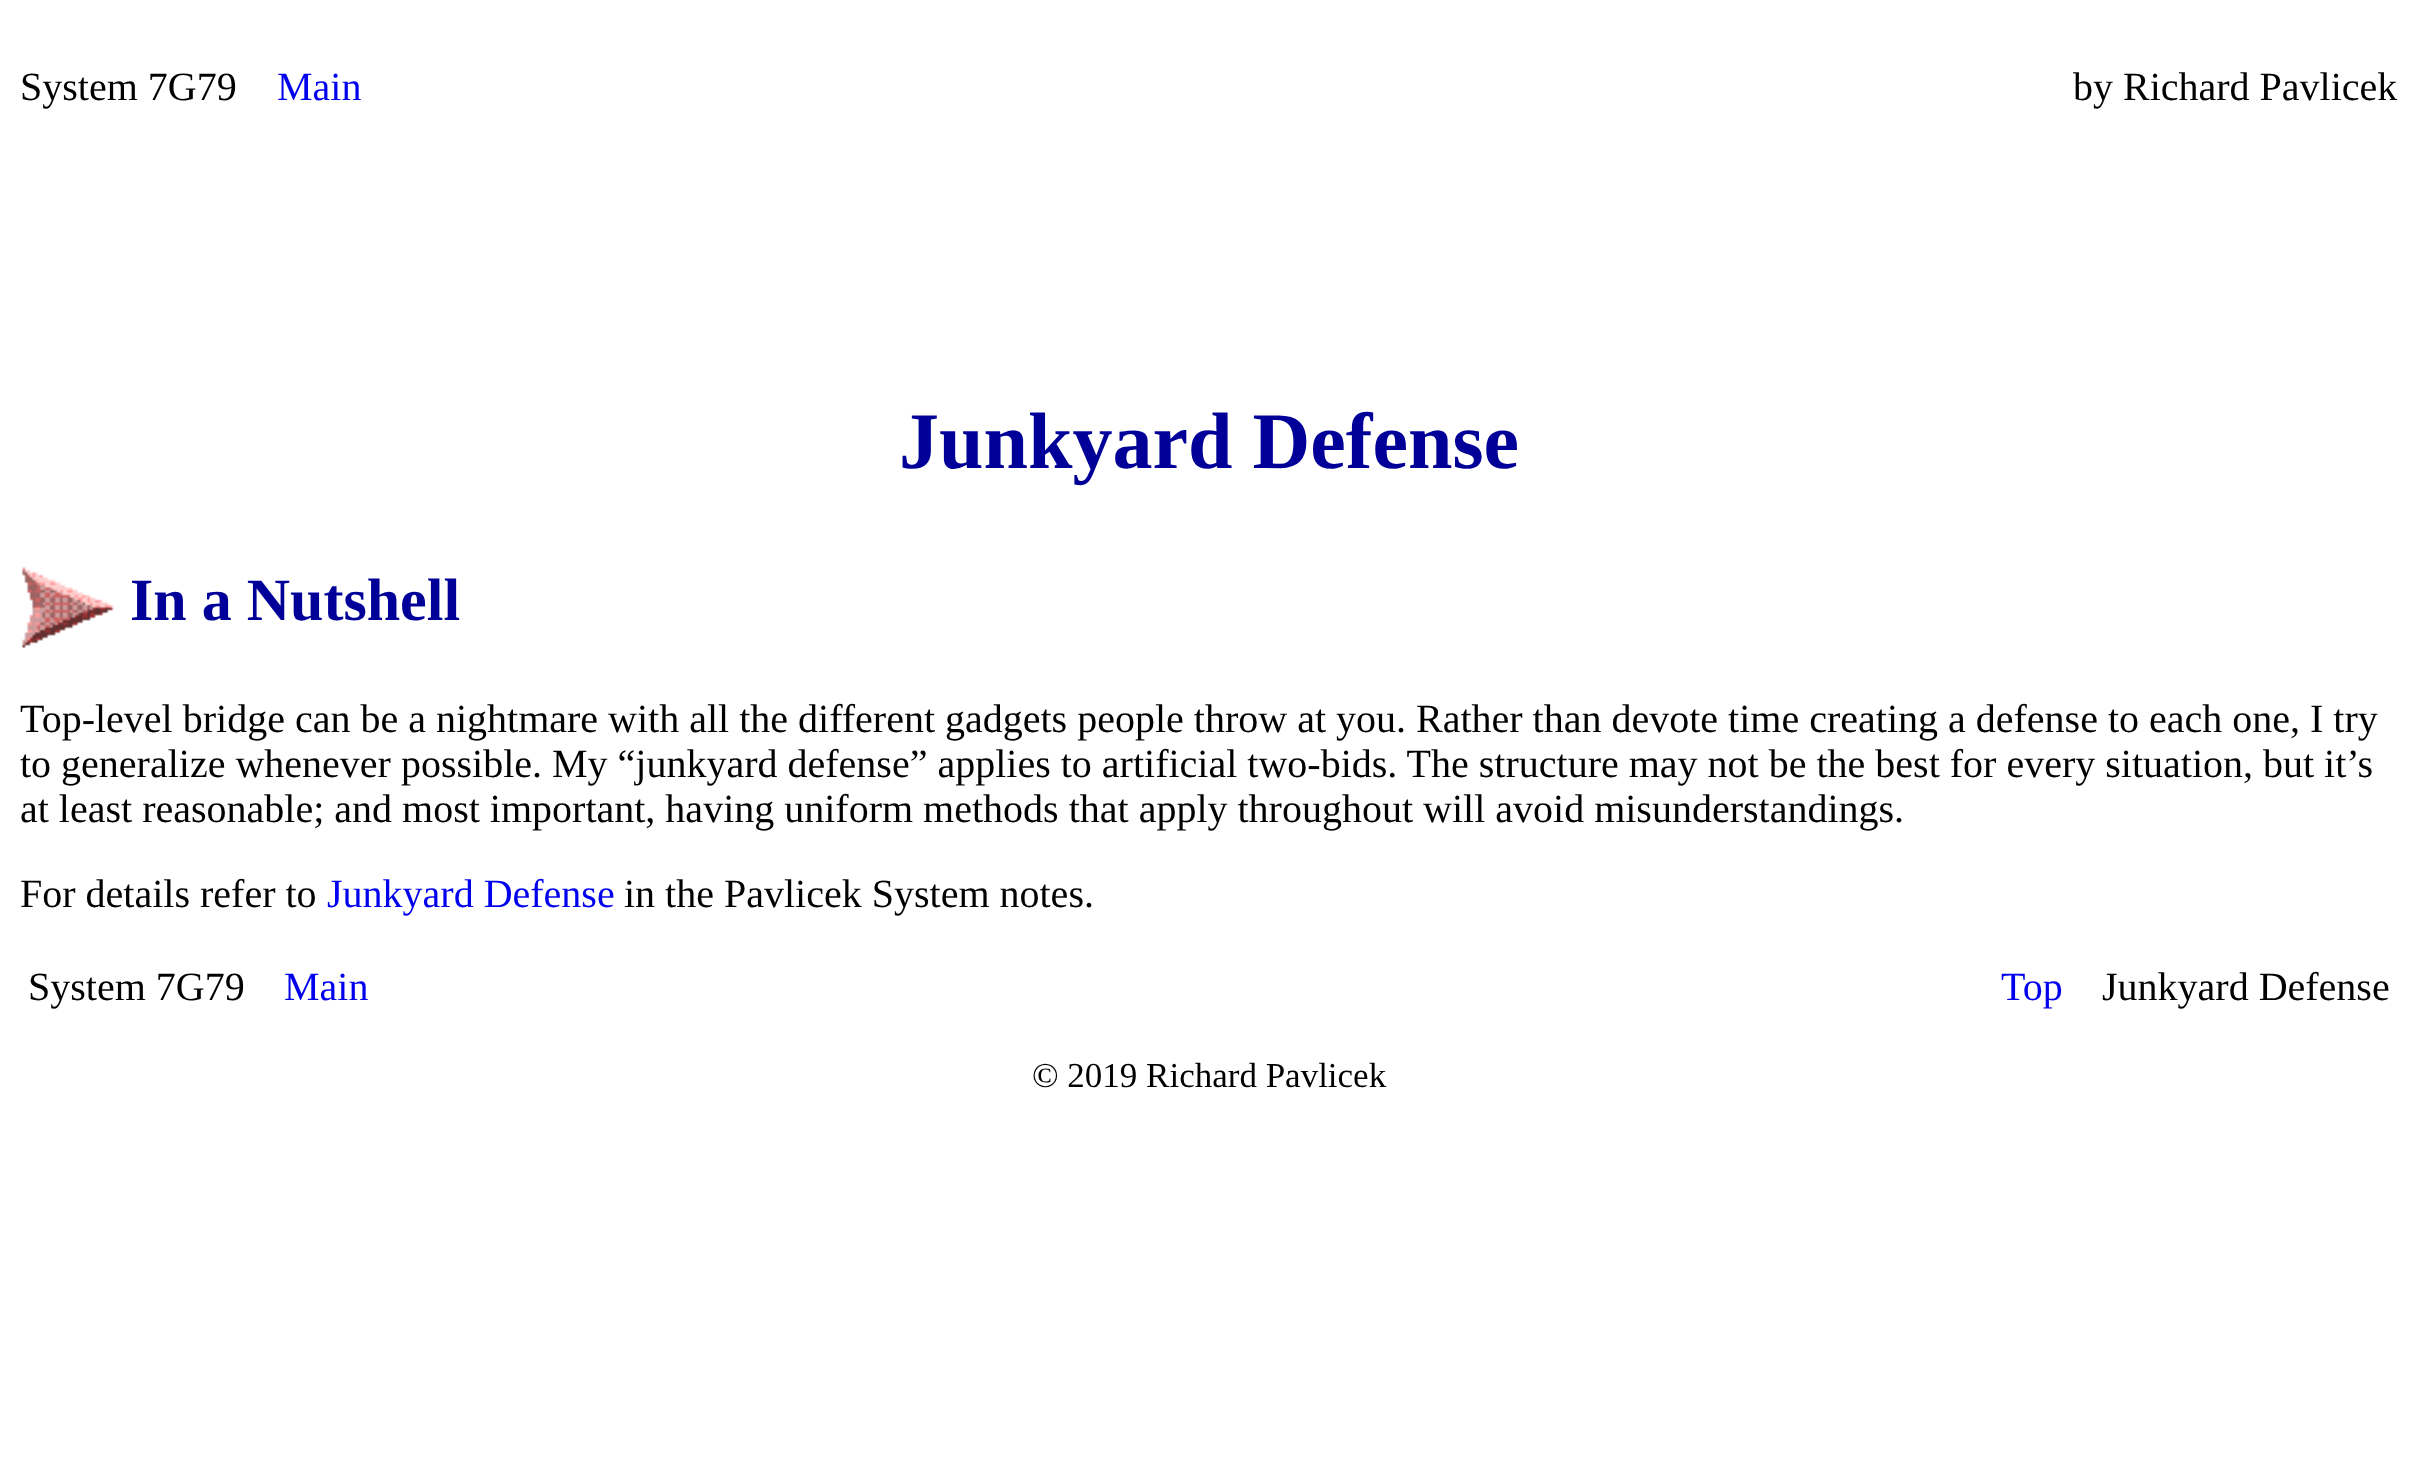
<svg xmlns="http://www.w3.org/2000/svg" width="2416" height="1464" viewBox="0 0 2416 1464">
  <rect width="100%" height="100%" fill="#fff"/>
  <image x="21" y="567" width="93" height="81" href="img/1.png"/>
  <text x="20" y="100" font-family="Liberation Serif" font-size="40" fill="#000">System 7G79</text>
  <text x="277" y="100" font-family="Liberation Serif" font-size="40" fill="#00e">Main</text>
  <text x="2073" y="100" font-family="Liberation Serif" font-size="40" fill="#000">by Richard Pavlicek</text>
  <text x="899" y="468" font-family="Liberation Serif" font-size="80" font-weight="bold" fill="#009">Junkyard Defense</text>
  <text x="130" y="620" font-family="Liberation Serif" font-size="60" font-weight="bold" fill="#009">In a Nutshell</text>
  <g font-family="Liberation Serif" font-size="40" fill="#000">
    <text x="20" y="732">Top-level bridge can be a nightmare with all the different gadgets people throw at you. Rather than devote time creating a defense to each one, I try</text>
    <text x="20" y="777">to generalize whenever possible. My “junkyard defense” applies to artificial two-bids. The structure may not be the best for every situation, but it’s</text>
    <text x="20" y="822">at least reasonable; and most important, having uniform methods that apply throughout will avoid misunderstandings.</text>
    <text x="20" y="907">For details refer to</text>
  </g>
  <text x="327" y="907" font-family="Liberation Serif" font-size="40" fill="#00e">Junkyard Defense</text>
  <g font-family="Liberation Serif" font-size="40" fill="#000">
    <text x="624" y="907">in the Pavlicek System notes.</text>
    <text x="28" y="1000">System 7G79</text>
  </g>
  <g font-family="Liberation Serif" font-size="40" fill="#00e">
    <text x="284" y="1000">Main</text>
    <text x="2001" y="1000">Top</text>
  </g>
  <text x="2102" y="1000" font-family="Liberation Serif" font-size="40" fill="#000">Junkyard Defense</text>
  <text x="1032" y="1087" font-family="Liberation Serif" font-size="35" fill="#000">© 2019 Richard Pavlicek</text>
</svg>
